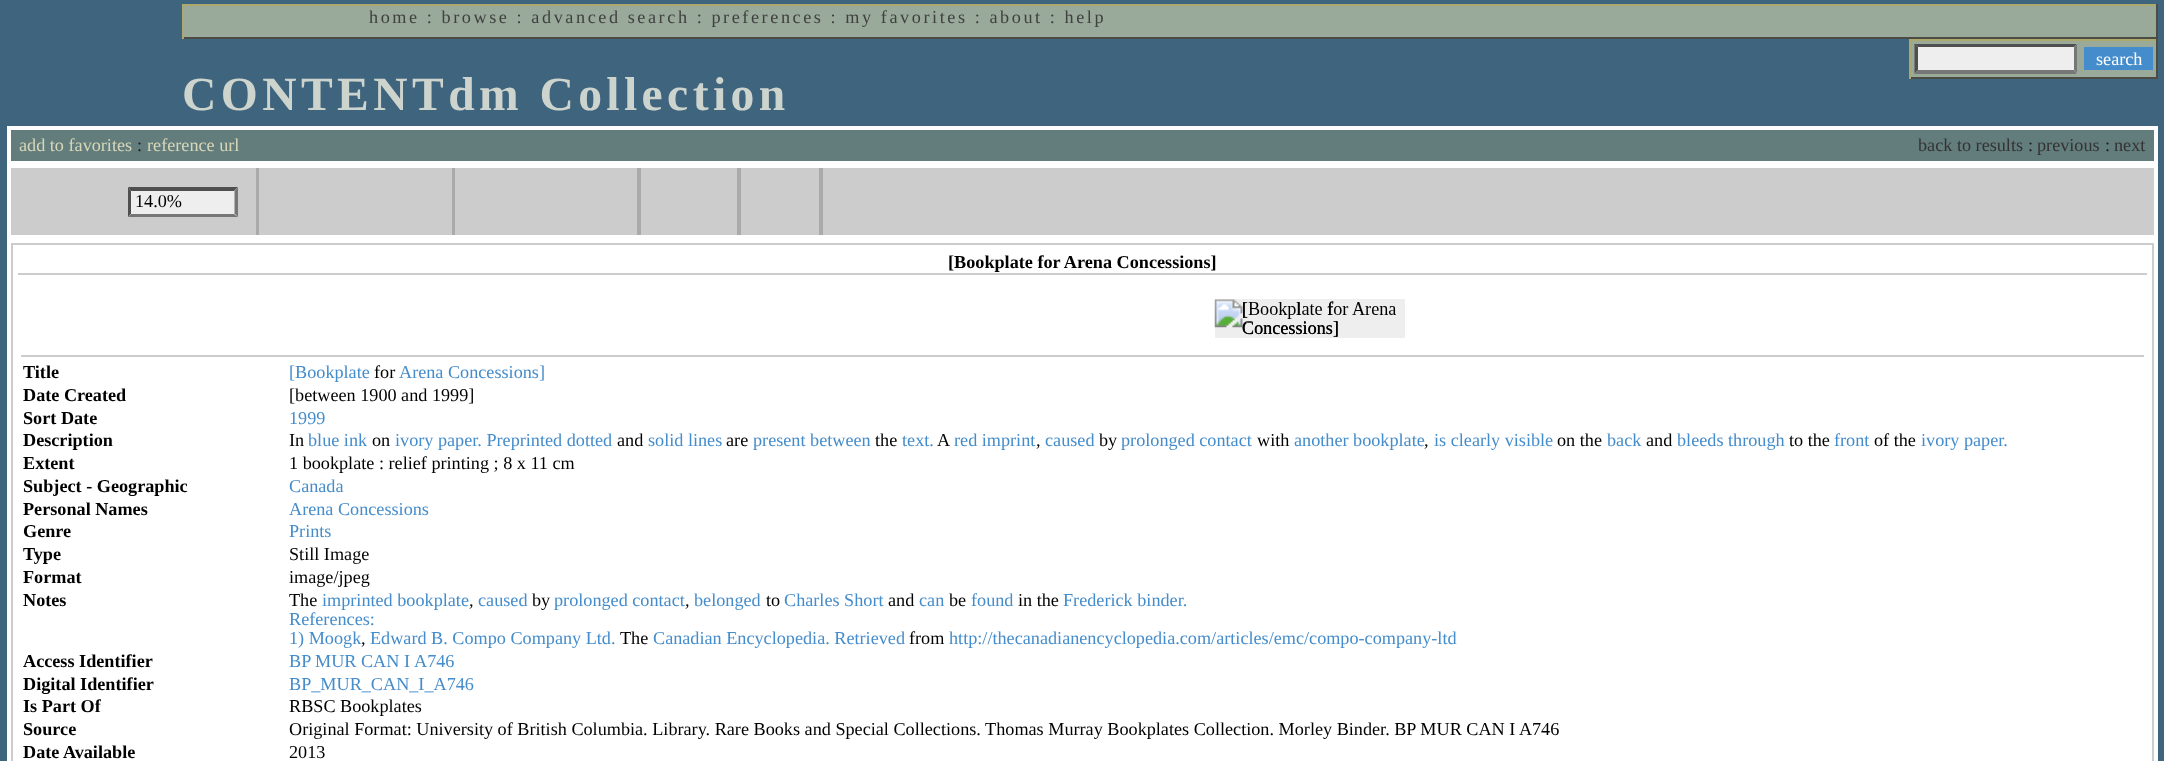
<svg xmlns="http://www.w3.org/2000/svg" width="2164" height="761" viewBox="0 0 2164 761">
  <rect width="100%" height="100%" fill="#fff"/>
  <path d="M0 0h7v761H0z" fill="#3e647e"/>
  <path d="M7 0h2151v126H7z" fill="#3e647e"/>
  <path d="M184 6h1972v31H184z" fill="#99a99a"/>
  <path d="M182 4h1976v2H182z" fill="#ada86b"/>
  <path d="M182 37h1950v2H182z" fill="#4c4c45"/>
  <path d="M182 4h2v35H182z" fill="#ada86b"/>
  <path d="M2156 4h2v35H2156z" fill="#4c4c45"/>
  <path d="M2132 37h26v2H2132z" fill="#4c4c45"/>
  <path d="M1911 41h245v36H1911z" fill="#99a99a"/>
  <path d="M1909 39h249v2H1909z" fill="#ada86b"/>
  <path d="M1909 77h172v2H1909z" fill="#4c4c45"/>
  <path d="M1909 39h2v40H1909z" fill="#ada86b"/>
  <path d="M1915 44h162v30H1915z" fill="#eee"/>
  <path d="M1914 44H2077L2074 47H1918Z" fill="#4f4f4f"/>
  <path d="M2077 44V73.5L2074 70V47Z" fill="#767676"/>
  <path d="M2077 74H1914L1918 70H2074Z" fill="#767676"/>
  <path d="M1914.5 73.5V44L1918 47V70Z" fill="#4f4f4f"/>
  <path d="M2156 39h2v40H2156z" fill="#4c4c45"/>
  <path d="M2081 77h77v2H2081z" fill="#4c4c45"/>
  <path d="M2084 47h69v23H2084z" fill="#448ccb"/>
  <path d="M11 130h2143v31H11z" fill="#627d7c"/>
  <path d="M2158 0h6v761H2158z" fill="#3e647e"/>
  <path d="M11 168h2143v67H11z" fill="#ccc"/>
  <path d="M256 168h3v67H256z" fill="#aaa"/>
  <path d="M128 187h110v30H128z" fill="#eee"/>
  <path d="M128 187H238L234 191H131Z" fill="#4f4f4f"/>
  <path d="M238 187V217L234.5 213.5V191Z" fill="#767676"/>
  <path d="M238 217H128L131 214H234Z" fill="#767676"/>
  <path d="M128 217V187L131 191V213.5Z" fill="#4f4f4f"/>
  <path d="M452 168h3v67H452z" fill="#aaa"/>
  <path d="M637 168h4v67H637z" fill="#aaa"/>
  <path d="M737 168h4v67H737z" fill="#aaa"/>
  <path d="M819 168h4v67H819z" fill="#aaa"/>
  <path d="M12 244h2141v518H12z" fill="none" stroke="#ccc" stroke-width="2"/>
  <path d="M18 273h2129v2H18z" fill="#ccc"/>
  <path d="M1215 299h190v39H1215z" fill="#eee"/>
  <image x="1214" y="299" width="183" height="38" href="img/1.png"/>
  <path d="M21 355h2123v2H21z" fill="#ccc"/>
  <text x="369" y="23" font-family="Liberation Serif" font-size="18.2" letter-spacing="2.57" fill="#404040">home : browse : advanced search : preferences : my favorites : about : help</text>
  <text x="2096" y="65" font-family="Liberation Serif" font-size="18.2" fill="#fff">search</text>
  <text x="182" y="110" font-family="Liberation Serif" font-size="47.6" font-weight="bold" letter-spacing="4.4" fill="#cdd3cd">CONTENTdm Collection</text>
  <text x="19" y="151" font-family="Liberation Serif" font-size="18.2" fill="#d9d7b9">add to favorites</text>
  <text x="137" y="151" font-family="Liberation Serif" font-size="18.2" fill="#202020">:</text>
  <text x="147" y="151" font-family="Liberation Serif" font-size="18.2" fill="#d9d7b9">reference url</text>
  <text x="1918" y="151" font-family="Liberation Serif" font-size="18.2" fill="#333">back to results</text>
  <text x="2028" y="151" font-family="Liberation Serif" font-size="18.2" fill="#202020">:</text>
  <text x="2037" y="151" font-family="Liberation Serif" font-size="18.2" fill="#333">previous</text>
  <text x="2105" y="151" font-family="Liberation Serif" font-size="18.2" fill="#202020">:</text>
  <text x="2114" y="151" font-family="Liberation Serif" font-size="18.2" fill="#333">next</text>
  <text x="135" y="207" font-family="Liberation Serif" font-size="18.2" fill="#000">14.0%</text>
  <text x="948" y="268" font-family="Liberation Serif" font-size="18.2" font-weight="bold" fill="#000">[Bookplate for Arena Concessions]</text>
  <g font-family="Liberation Serif" font-size="18.2" fill="#000">
    <text x="1242" y="315">[</text>
    <text x="1296" y="315">l</text>
    <text x="1327" y="315">f</text>
    <text x="1242" y="334">Concessions]</text>
  </g>
  <text x="23" y="378" font-family="Liberation Serif" font-size="18.2" font-weight="bold" fill="#000">Title</text>
  <text x="289" y="378" font-family="Liberation Serif" font-size="18.2" fill="#448ccb">[Bookplate</text>
  <text x="374" y="378" font-family="Liberation Serif" font-size="18.2" fill="#000">for</text>
  <text x="399" y="378" font-family="Liberation Serif" font-size="18.2" fill="#448ccb">Arena Concessions]</text>
  <text x="23" y="401" font-family="Liberation Serif" font-size="18.2" font-weight="bold" fill="#000">Date Created</text>
  <text x="289" y="401" font-family="Liberation Serif" font-size="18.2" fill="#000">[between 1900 and 1999]</text>
  <text x="23" y="424" font-family="Liberation Serif" font-size="18.2" font-weight="bold" fill="#000">Sort Date</text>
  <text x="289" y="424" font-family="Liberation Serif" font-size="18.2" fill="#448ccb">1999</text>
  <text x="23" y="446" font-family="Liberation Serif" font-size="18.2" font-weight="bold" fill="#000">Description</text>
  <text x="289" y="446" font-family="Liberation Serif" font-size="18.2" fill="#000">In</text>
  <text x="308" y="446" font-family="Liberation Serif" font-size="18.2" fill="#448ccb">blue ink</text>
  <text x="372" y="446" font-family="Liberation Serif" font-size="18.2" fill="#000">on</text>
  <text x="395" y="446" font-family="Liberation Serif" font-size="18.2" fill="#448ccb">ivory paper. Preprinted dotted</text>
  <text x="617" y="446" font-family="Liberation Serif" font-size="18.2" fill="#000">and</text>
  <text x="648" y="446" font-family="Liberation Serif" font-size="18.2" fill="#448ccb">solid lines</text>
  <text x="726" y="446" font-family="Liberation Serif" font-size="18.2" fill="#000">are</text>
  <text x="753" y="446" font-family="Liberation Serif" font-size="18.2" fill="#448ccb">present between</text>
  <text x="875" y="446" font-family="Liberation Serif" font-size="18.2" fill="#000">the</text>
  <text x="902" y="446" font-family="Liberation Serif" font-size="18.2" fill="#448ccb">text.</text>
  <text x="937" y="446" font-family="Liberation Serif" font-size="18.2" fill="#000">A</text>
  <text x="954" y="446" font-family="Liberation Serif" font-size="18.2" fill="#448ccb">red imprint</text>
  <text x="1036" y="446" font-family="Liberation Serif" font-size="18.2" fill="#000">,</text>
  <text x="1045" y="446" font-family="Liberation Serif" font-size="18.2" fill="#448ccb">caused</text>
  <text x="1099" y="446" font-family="Liberation Serif" font-size="18.2" fill="#000">by</text>
  <text x="1121" y="446" font-family="Liberation Serif" font-size="18.2" fill="#448ccb">prolonged contact</text>
  <text x="1257" y="446" font-family="Liberation Serif" font-size="18.2" fill="#000">with</text>
  <text x="1294" y="446" font-family="Liberation Serif" font-size="18.2" fill="#448ccb">another bookplate</text>
  <text x="1424" y="446" font-family="Liberation Serif" font-size="18.2" fill="#000">,</text>
  <text x="1434" y="446" font-family="Liberation Serif" font-size="18.2" fill="#448ccb">is clearly visible</text>
  <text x="1557" y="446" font-family="Liberation Serif" font-size="18.2" fill="#000">on the</text>
  <text x="1607" y="446" font-family="Liberation Serif" font-size="18.2" fill="#448ccb">back</text>
  <text x="1646" y="446" font-family="Liberation Serif" font-size="18.2" fill="#000">and</text>
  <text x="1677" y="446" font-family="Liberation Serif" font-size="18.2" fill="#448ccb">bleeds through</text>
  <text x="1789" y="446" font-family="Liberation Serif" font-size="18.2" fill="#000">to the</text>
  <text x="1834" y="446" font-family="Liberation Serif" font-size="18.2" fill="#448ccb">front</text>
  <text x="1874" y="446" font-family="Liberation Serif" font-size="18.2" fill="#000">of the</text>
  <text x="1921" y="446" font-family="Liberation Serif" font-size="18.2" fill="#448ccb">ivory paper.</text>
  <text x="23" y="469" font-family="Liberation Serif" font-size="18.2" font-weight="bold" fill="#000">Extent</text>
  <text x="289" y="469" font-family="Liberation Serif" font-size="18.2" fill="#000">1 bookplate : relief printing ; 8 x 11 cm</text>
  <text x="23" y="492" font-family="Liberation Serif" font-size="18.2" font-weight="bold" fill="#000">Subject - Geographic</text>
  <text x="289" y="492" font-family="Liberation Serif" font-size="18.2" fill="#448ccb">Canada</text>
  <text x="23" y="515" font-family="Liberation Serif" font-size="18.2" font-weight="bold" fill="#000">Personal Names</text>
  <text x="289" y="515" font-family="Liberation Serif" font-size="18.2" fill="#448ccb">Arena Concessions</text>
  <text x="23" y="537" font-family="Liberation Serif" font-size="18.2" font-weight="bold" fill="#000">Genre</text>
  <text x="289" y="537" font-family="Liberation Serif" font-size="18.2" fill="#448ccb">Prints</text>
  <text x="23" y="560" font-family="Liberation Serif" font-size="18.2" font-weight="bold" fill="#000">Type</text>
  <text x="289" y="560" font-family="Liberation Serif" font-size="18.2" fill="#000">Still Image</text>
  <text x="23" y="583" font-family="Liberation Serif" font-size="18.2" font-weight="bold" fill="#000">Format</text>
  <text x="289" y="583" font-family="Liberation Serif" font-size="18.2" fill="#000">image/jpeg</text>
  <text x="23" y="606" font-family="Liberation Serif" font-size="18.2" font-weight="bold" fill="#000">Notes</text>
  <text x="289" y="606" font-family="Liberation Serif" font-size="18.2" fill="#000">The</text>
  <text x="322" y="606" font-family="Liberation Serif" font-size="18.2" fill="#448ccb">imprinted bookplate</text>
  <text x="469" y="606" font-family="Liberation Serif" font-size="18.2" fill="#000">,</text>
  <text x="478" y="606" font-family="Liberation Serif" font-size="18.2" fill="#448ccb">caused</text>
  <text x="532" y="606" font-family="Liberation Serif" font-size="18.2" fill="#000">by</text>
  <text x="554" y="606" font-family="Liberation Serif" font-size="18.2" fill="#448ccb">prolonged contact</text>
  <text x="685" y="606" font-family="Liberation Serif" font-size="18.2" fill="#000">,</text>
  <text x="694" y="606" font-family="Liberation Serif" font-size="18.2" fill="#448ccb">belonged</text>
  <text x="766" y="606" font-family="Liberation Serif" font-size="18.2" fill="#000">to</text>
  <text x="784" y="606" font-family="Liberation Serif" font-size="18.2" fill="#448ccb">Charles Short</text>
  <text x="888" y="606" font-family="Liberation Serif" font-size="18.2" fill="#000">and</text>
  <text x="919" y="606" font-family="Liberation Serif" font-size="18.2" fill="#448ccb">can</text>
  <text x="949" y="606" font-family="Liberation Serif" font-size="18.2" fill="#000">be</text>
  <text x="971" y="606" font-family="Liberation Serif" font-size="18.2" fill="#448ccb">found</text>
  <text x="1018" y="606" font-family="Liberation Serif" font-size="18.2" fill="#000">in the</text>
  <g font-family="Liberation Serif" font-size="18.2" fill="#448ccb">
    <text x="1063" y="606">Frederick binder.</text>
    <text x="289" y="625">References:</text>
    <text x="289" y="644">1) Moogk</text>
  </g>
  <text x="361" y="644" font-family="Liberation Serif" font-size="18.2" fill="#000">,</text>
  <text x="370" y="644" font-family="Liberation Serif" font-size="18.2" fill="#448ccb">Edward B. Compo Company Ltd.</text>
  <text x="620" y="644" font-family="Liberation Serif" font-size="18.2" fill="#000">The</text>
  <text x="653" y="644" font-family="Liberation Serif" font-size="18.2" fill="#448ccb">Canadian Encyclopedia. Retrieved</text>
  <text x="909" y="644" font-family="Liberation Serif" font-size="18.2" fill="#000">from</text>
  <text x="949" y="644" font-family="Liberation Serif" font-size="18.2" fill="#448ccb">http://thecanadianencyclopedia.com/articles/emc/compo-company-ltd</text>
  <text x="23" y="667" font-family="Liberation Serif" font-size="18.2" font-weight="bold" fill="#000">Access Identifier</text>
  <g font-family="Liberation Serif" font-size="18.2" fill="#448ccb">
    <text x="289" y="667">BP</text>
    <text x="315" y="667">MUR CAN I</text>
    <text x="414" y="667">A746</text>
  </g>
  <text x="23" y="690" font-family="Liberation Serif" font-size="18.2" font-weight="bold" fill="#000">Digital Identifier</text>
  <text x="289" y="690" font-family="Liberation Serif" font-size="18.2" fill="#448ccb">BP_MUR_CAN_I_A746</text>
  <text x="23" y="712" font-family="Liberation Serif" font-size="18.2" font-weight="bold" fill="#000">Is Part Of</text>
  <text x="289" y="712" font-family="Liberation Serif" font-size="18.2" fill="#000">RBSC Bookplates</text>
  <text x="23" y="735" font-family="Liberation Serif" font-size="18.2" font-weight="bold" fill="#000">Source</text>
  <text x="289" y="735" font-family="Liberation Serif" font-size="18.2" fill="#000">Original Format: University of British Columbia. Library. Rare Books and Special Collections. Thomas Murray Bookplates Collection. Morley Binder. BP MUR CAN I A746</text>
  <text x="23" y="758" font-family="Liberation Serif" font-size="18.2" font-weight="bold" fill="#000">Date Available</text>
  <text x="289" y="758" font-family="Liberation Serif" font-size="18.2" fill="#000">2013</text>
</svg>
